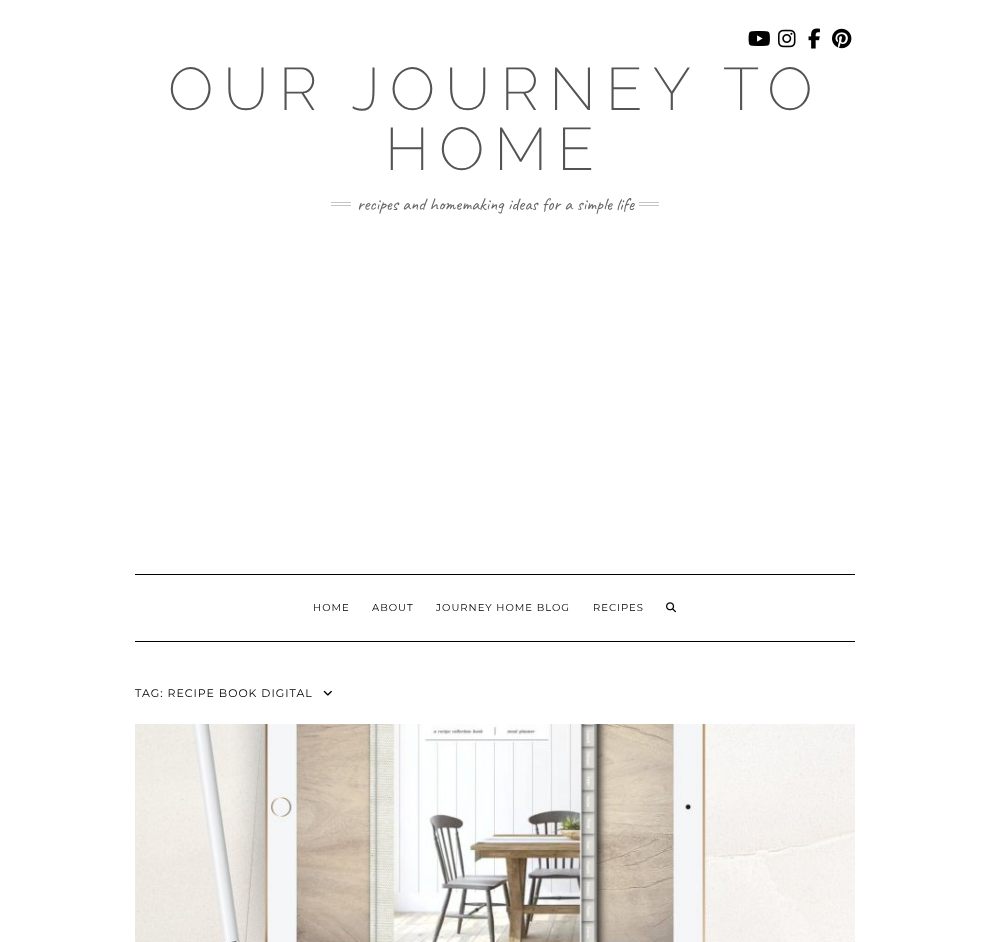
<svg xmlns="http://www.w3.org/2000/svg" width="990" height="942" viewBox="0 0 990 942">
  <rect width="100%" height="100%" fill="#fff"/>
  <image x="748" y="31" width="22" height="15" href="img/1.png"/>
  <image x="778" y="29" width="18" height="19" href="img/2.png"/>
  <image x="808" y="28" width="12" height="21" href="img/3.png"/>
  <image x="832" y="28" width="20" height="21" href="img/4.png"/>
  <path d="M331 202h20v1H331z" fill="#c4c4c4"/>
  <path d="M331 205h20v1H331z" fill="#c4c4c4"/>
  <path d="M639 202h20v1H639z" fill="#c4c4c4"/>
  <path d="M639 205h20v1H639z" fill="#c4c4c4"/>
  <path d="M135 574h720v1H135z" fill="#000"/>
  <path d="M135 641h720v1H135z" fill="#000"/>
  <image x="666" y="602" width="10" height="11" href="img/5.png"/>
  <image x="323" y="690" width="9" height="6" href="img/6.png"/>
  <image x="135" y="724" width="720" height="218" href="img/7.png"/>
  <g font-family="Raleway" font-size="60" font-weight="100" letter-spacing="10" fill="#545454">
    <text x="168" y="110">OUR JOURNEY TO</text>
    <text x="385" y="170">HOME</text>
  </g>
  <text x="357" y="210" font-family="Caveat" font-size="18" fill="#646464">recipes and homemaking ideas for a simple life</text>
  <g font-family="Montserrat" font-size="10" letter-spacing="1" fill="#000">
    <text x="313" y="611">HOME</text>
    <text x="372" y="611">ABOUT</text>
    <text x="436" y="611">JOURNEY HOME BLOG</text>
    <text x="593" y="611">RECIPES</text>
  </g>
  <text x="135" y="697" font-family="Montserrat" font-size="11" letter-spacing="1" fill="#000">TAG: RECIPE BOOK DIGITAL</text>
</svg>
